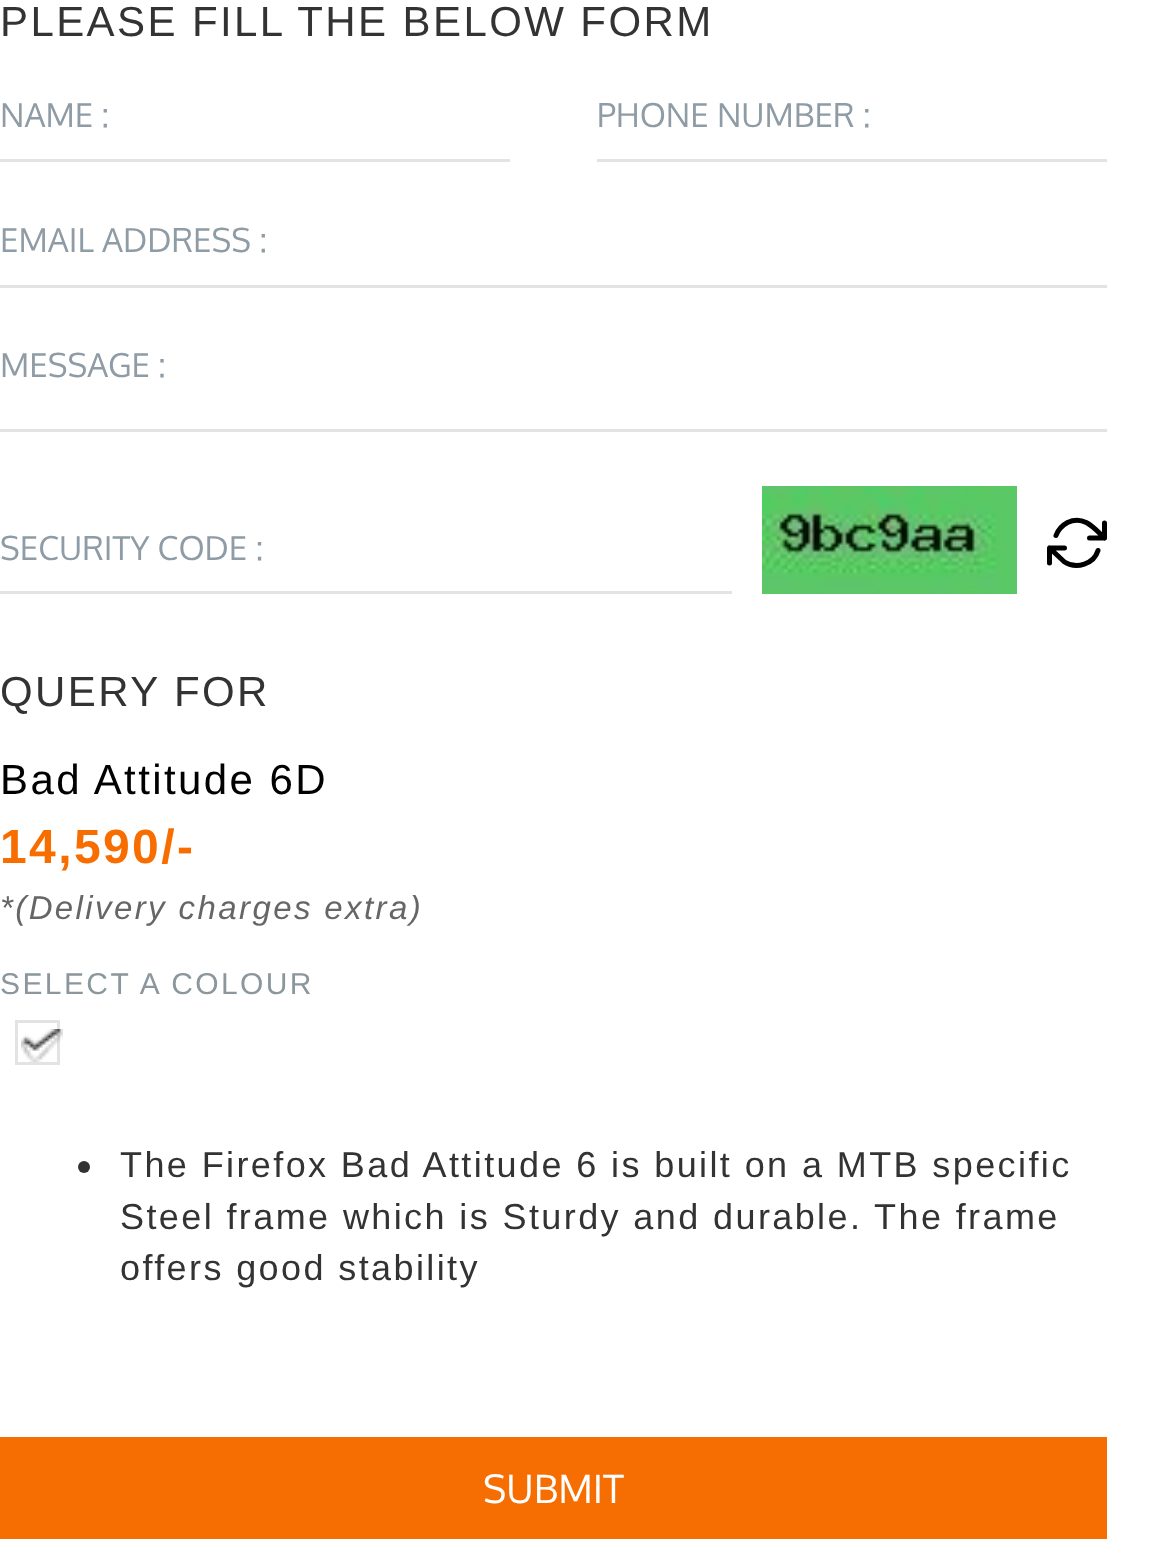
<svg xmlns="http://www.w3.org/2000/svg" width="1150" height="1553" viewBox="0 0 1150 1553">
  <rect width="100%" height="100%" fill="#fff"/>
  <path d="M0 159h510v3H0z" fill="#e3e3e3"/>
  <path d="M597 159h510v3H597z" fill="#e3e3e3"/>
  <path d="M0 285h1107v3H0z" fill="#e3e3e3"/>
  <path d="M0 429h1107v3H0z" fill="#e3e3e3"/>
  <path d="M0 591h732v3H0z" fill="#e3e3e3"/>
  <image x="762" y="486" width="255" height="108" href="img/1.png"/>
  <path d="M1104.5 523V538H1089.5M1049.5 563V548H1064.5M1056 535.5C1058 530 1062 525.5 1067.5 522.5C1084 515 1094 528 1104.5 538M1049.5 548L1064.5 562C1076.5 569.5 1094 564 1098 550.5" fill="none" stroke="#000" stroke-width="5" stroke-linecap="round" stroke-linejoin="round"/>
  <path d="M16.5 1021.5h42v42H16.5z" fill="none" stroke="#e3e3e3" stroke-width="3"/>
  <image x="21" y="1029" width="42" height="33" href="img/2.png"/>
  <circle cx="84" cy="1167" r="6" fill="#333"/>
  <path d="M0 1437h1107v102H0z" fill="#f66e01"/>
  <text x="0" y="36" font-family="Liberation Sans" font-size="42" letter-spacing="2.4" fill="#333">PLEASE FILL THE BELOW FORM</text>
  <g font-family="Oxygen" font-size="33" fill="#8f9ca5">
    <text x="0" y="127">NAME :</text>
    <text x="597" y="127">PHONE NUMBER :</text>
    <text x="0" y="252">EMAIL ADDRESS :</text>
    <text x="0" y="377">MESSAGE :</text>
    <text x="0" y="560">SECURITY CODE :</text>
  </g>
  <text x="0" y="706" font-family="Liberation Sans" font-size="42" letter-spacing="2.4" fill="#333">QUERY FOR</text>
  <text x="0" y="794" font-family="Liberation Sans" font-size="42" letter-spacing="2.4" fill="#000">Bad Attitude 6D</text>
  <text x="0" y="863" font-family="Liberation Sans" font-size="48" font-weight="bold" letter-spacing="2.4" fill="#f86d00">14,590/-</text>
  <text x="0" y="919" font-family="Liberation Sans" font-size="33" font-style="italic" letter-spacing="2.4" fill="#666">*(Delivery charges extra)</text>
  <text x="0" y="994" font-family="Liberation Sans" font-size="30" letter-spacing="2.4" fill="#8b969d">SELECT A COLOUR</text>
  <g font-family="Liberation Sans" font-size="36" letter-spacing="2.4" fill="#333">
    <text x="120" y="1177">The Firefox Bad Attitude 6 is built on a MTB specific</text>
    <text x="120" y="1229">Steel frame which is Sturdy and durable. The frame</text>
    <text x="120" y="1280">offers good stability</text>
  </g>
  <text x="483" y="1503" font-family="Oxygen" font-size="39" fill="#fff">SUBMIT</text>
</svg>
